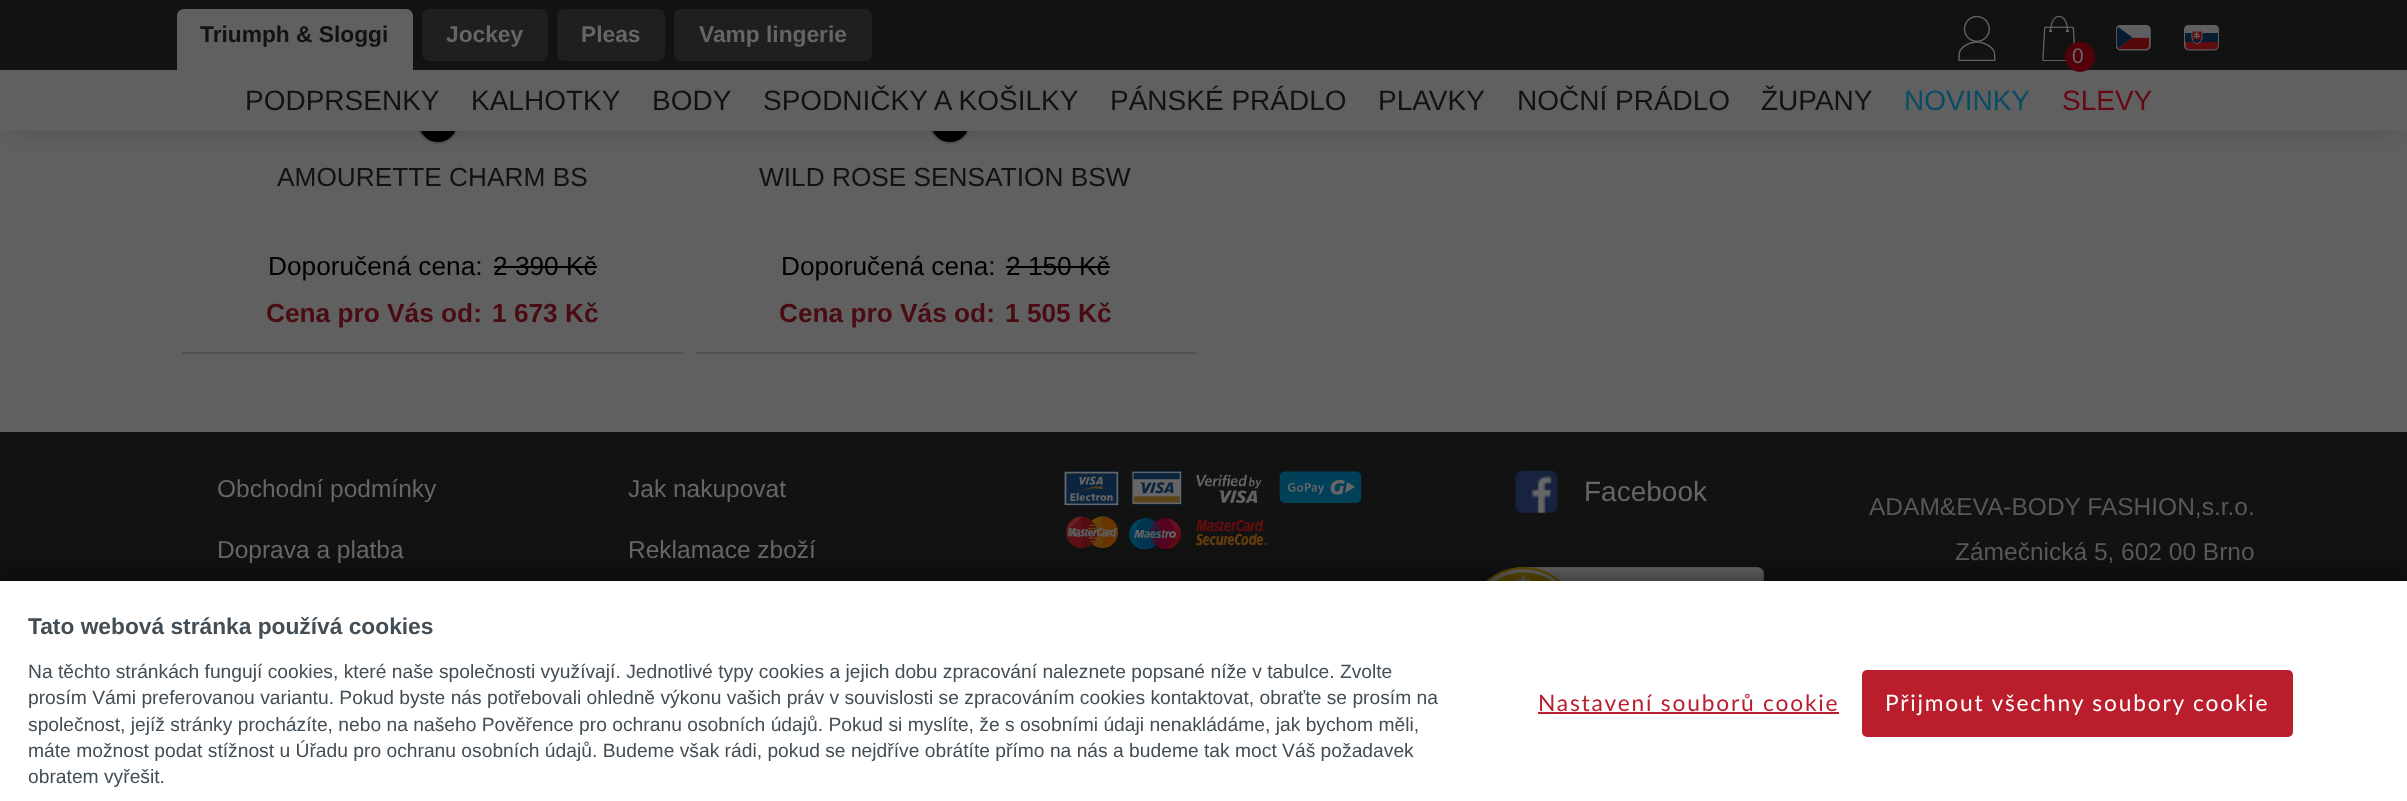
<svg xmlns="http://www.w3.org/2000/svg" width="2407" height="801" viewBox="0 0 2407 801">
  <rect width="100%" height="100%" fill="#606060"/>
  <circle cx="438" cy="123" r="20" fill="#000" stroke="#525252" stroke-width="2"/>
  <circle cx="950" cy="123" r="20" fill="#000" stroke="#525252" stroke-width="2"/>
  <path d="M12 82h2384v37H12z" fill="#00000085" filter="blur(14px)"/>
  <path d="M0 0h2407v70H0z" fill="#121212"/>
  <path d="M184 9H406C410 9 413 12 413 16V70H177V16C177 12 180 9 184 9Z" fill="#606060"/>
  <rect x="422" y="9" width="126" height="52" rx="7" fill="#1f1f1f"/>
  <rect x="557" y="9" width="108" height="52" rx="7" fill="#1f1f1f"/>
  <rect x="674" y="9" width="198" height="52" rx="7" fill="#1f1f1f"/>
  <image x="1958" y="16" width="38" height="45" href="img/1.png"/>
  <image x="2116" y="25" width="35" height="26" href="img/2.png"/>
  <image x="2184" y="25" width="35" height="26" href="img/3.png"/>
  <image x="2042" y="16" width="33" height="45" href="img/4.png"/>
  <path d="M0 70h2407v61H0z" fill="#606060"/>
  <circle cx="2080" cy="57" r="15" fill="#540009"/>
  <path d="M182 352h502v2H182z" fill="#525252"/>
  <path d="M494 266h103v2H494z" fill="#000"/>
  <path d="M695 352h502v2H695z" fill="#525252"/>
  <path d="M1006 266h104v2H1006z" fill="#000"/>
  <path d="M0 432h2407v149H0z" fill="#121212"/>
  <image x="1064" y="471" width="298" height="79" href="img/5.png"/>
  <image x="1515" y="470" width="43" height="43" href="img/6.png"/>
  <image x="1485" y="567" width="279" height="14" href="img/7.png"/>
  <path d="M-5 576h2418v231H-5z" fill="#00000080" filter="blur(12px)"/>
  <path d="M0 581h2407v220H0z" fill="#fff"/>
  <path d="M1538 712h301v2H1538z" fill="#ba1e2d"/>
  <rect x="1862" y="670" width="431" height="67" rx="5" fill="#ba1e2d"/>
  <text x="200" y="42" font-family="Liberation Sans" font-size="22.75" font-weight="bold" fill="#121212">Triumph &amp; Sloggi</text>
  <g font-family="Liberation Sans" font-size="22.75" font-weight="bold" fill="#666">
    <text x="446" y="42">Jockey</text>
    <text x="581" y="42">Pleas</text>
    <text x="699" y="42">Vamp lingerie</text>
  </g>
  <text x="2072" y="63" font-family="Liberation Sans" font-size="21" fill="#666">0</text>
  <g font-family="Liberation Sans" font-size="28" fill="#121212">
    <text x="245" y="110">PODPRSENKY</text>
    <text x="471" y="110">KALHOTKY</text>
    <text x="652" y="110">BODY</text>
    <text x="763" y="110">SPODNIČKY A KOŠILKY</text>
    <text x="1110" y="110">PÁNSKÉ PRÁDLO</text>
    <text x="1378" y="110">PLAVKY</text>
    <text x="1517" y="110">NOČNÍ PRÁDLO</text>
    <text x="1761" y="110">ŽUPANY</text>
  </g>
  <text x="1904" y="110" font-family="Liberation Sans" font-size="28" fill="#084c66">NOVINKY</text>
  <text x="2062" y="110" font-family="Liberation Sans" font-size="28" fill="#660812">SLEVY</text>
  <text x="277" y="186" font-family="Liberation Sans" font-size="26.25" fill="#121212">AMOURETTE CHARM BS</text>
  <g font-family="Liberation Sans" font-size="26.25" fill="#000">
    <text x="268" y="275">Doporučená cena:</text>
    <text x="493" y="275">2 390 Kč</text>
  </g>
  <g font-family="Liberation Sans" font-size="26.25" font-weight="bold" fill="#4a0c12">
    <text x="266" y="322">Cena pro Vás od:</text>
    <text x="492" y="322">1 673 Kč</text>
  </g>
  <text x="759" y="186" font-family="Liberation Sans" font-size="26.25" fill="#121212">WILD ROSE SENSATION BSW</text>
  <g font-family="Liberation Sans" font-size="26.25" fill="#000">
    <text x="781" y="275">Doporučená cena:</text>
    <text x="1006" y="275">2 150 Kč</text>
  </g>
  <g font-family="Liberation Sans" font-size="26.25" font-weight="bold" fill="#4a0c12">
    <text x="779" y="322">Cena pro Vás od:</text>
    <text x="1005" y="322">1 505 Kč</text>
  </g>
  <g font-family="Liberation Sans" font-size="24.5" fill="#666">
    <text x="217" y="497">Obchodní podmínky</text>
    <text x="217" y="558">Doprava a platba</text>
    <text x="628" y="497">Jak nakupovat</text>
    <text x="628" y="558">Reklamace zboží</text>
  </g>
  <text x="1584" y="501" font-family="Liberation Sans" font-size="28" fill="#666">Facebook</text>
  <g font-family="Liberation Sans" font-size="24.5" fill="#585858">
    <text x="1869" y="515">ADAM&amp;EVA-BODY FASHION,s.r.o.</text>
    <text x="1955" y="560">Zámečnická 5, 602 00 Brno</text>
  </g>
  <text x="28" y="634" font-family="Liberation Sans" font-size="22.75" font-weight="bold" fill="#424d55">Tato webová stránka používá cookies</text>
  <g font-family="Liberation Sans" font-size="19.25" fill="#424d55">
    <text x="28" y="678">Na těchto stránkách fungují cookies, které naše společnosti využívají. Jednotlivé typy cookies a jejich dobu zpracování naleznete popsané níže v tabulce. Zvolte</text>
    <text x="28" y="704">prosím Vámi preferovanou variantu. Pokud byste nás potřebovali ohledně výkonu vašich práv v souvislosti se zpracováním cookies kontaktovat, obraťte se prosím na</text>
    <text x="28" y="731">společnost, jejíž stránky procházíte, nebo na našeho Pověřence pro ochranu osobních údajů. Pokud si myslíte, že s osobními údaji nenakládáme, jak bychom měli,</text>
    <text x="28" y="757">máte možnost podat stížnost u Úřadu pro ochranu osobních údajů. Budeme však rádi, pokud se nejdříve obrátíte přímo na nás a budeme tak moct Váš požadavek</text>
    <text x="28" y="783">obratem vyřešit.</text>
  </g>
  <text x="1538" y="711" font-family="Lato" font-size="22.75" letter-spacing="1.8" fill="#ba1e2d">Nastavení souborů cookie</text>
  <text x="1885" y="711" font-family="Lato" font-size="22.75" letter-spacing="1.8" fill="#fff">Přijmout všechny soubory cookie</text>
</svg>
